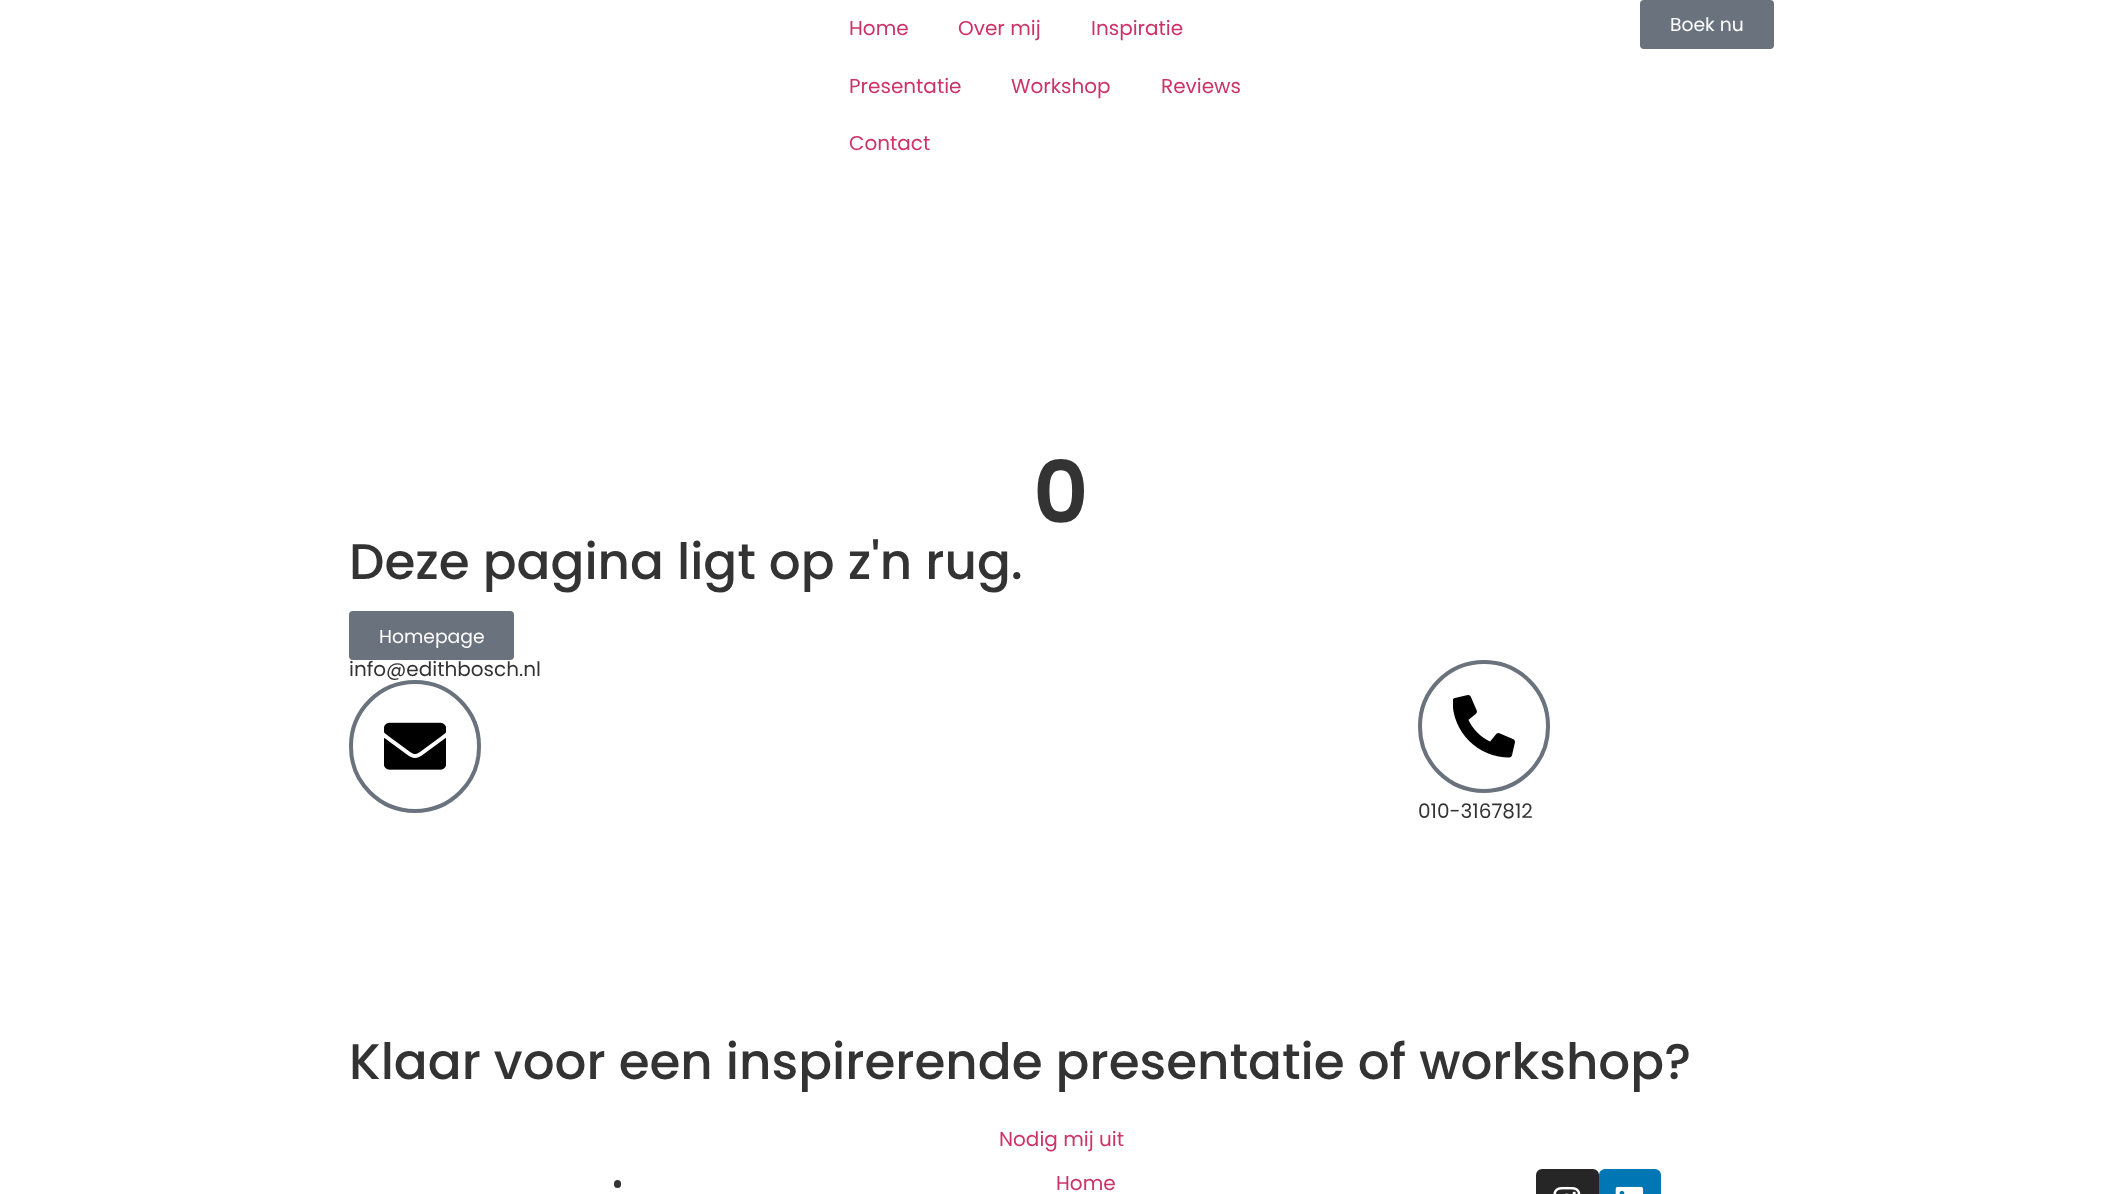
<svg xmlns="http://www.w3.org/2000/svg" width="2122" height="1194" viewBox="0 0 2122 1194">
  <rect width="100%" height="100%" fill="#fff"/>
  <rect x="1640" width="134" height="49" rx="4" fill="#69727d"/>
  <rect x="349" y="611" width="165" height="49" rx="4" fill="#69727d"/>
  <rect x="351" y="682" width="128" height="129" rx="64" fill="none" stroke="#69727d" stroke-width="4"/>
  <image x="384" y="722" width="62" height="48" href="img/1.png"/>
  <rect x="1420" y="662" width="128" height="129" rx="64" fill="none" stroke="#69727d" stroke-width="4"/>
  <image x="1453" y="695" width="62" height="63" href="img/2.png"/>
  <rect x="614" y="1180" width="7" height="8" rx="3.5" fill="#333"/>
  <rect x="1536" y="1169" width="63" height="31" rx="6" fill="#262626"/>
  <image x="1553" y="1186" width="28" height="8" href="img/3.png"/>
  <rect x="1599" y="1169" width="62" height="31" rx="6" fill="#0077b5"/>
  <image x="1615" y="1186" width="29" height="8" href="img/4.png"/>
  <g font-family="Poppins" font-size="20" fill="#c36">
    <text x="849" y="35">Home</text>
    <text x="958" y="35">Over mij</text>
    <text x="1091" y="35">Inspiratie</text>
    <text x="849" y="93">Presentatie</text>
    <text x="1011" y="93">Workshop</text>
    <text x="1161" y="93">Reviews</text>
    <text x="849" y="150">Contact</text>
  </g>
  <text x="1670" y="31" font-family="Poppins" font-size="18.75" fill="#fff">Boek nu</text>
  <text x="1033" y="523" font-family="Poppins" font-size="86" font-weight="600" fill="#333">0</text>
  <text x="349" y="579" font-family="Poppins" font-size="50" font-weight="500" fill="#333">Deze pagina ligt op z'n rug.</text>
  <text x="379" y="643" font-family="Poppins" font-size="18.75" fill="#fff">Homepage</text>
  <g font-family="Poppins" font-size="20" fill="#333">
    <text x="349" y="676">info@edithbosch.nl</text>
    <text x="1418" y="818">010-3167812</text>
  </g>
  <text x="349" y="1079" font-family="Poppins" font-size="50" font-weight="500" fill="#333">Klaar voor een inspirerende presentatie of workshop?</text>
  <g font-family="Poppins" font-size="20" fill="#c36">
    <text x="999" y="1146">Nodig mij uit</text>
    <text x="1056" y="1190">Home</text>
  </g>
</svg>
